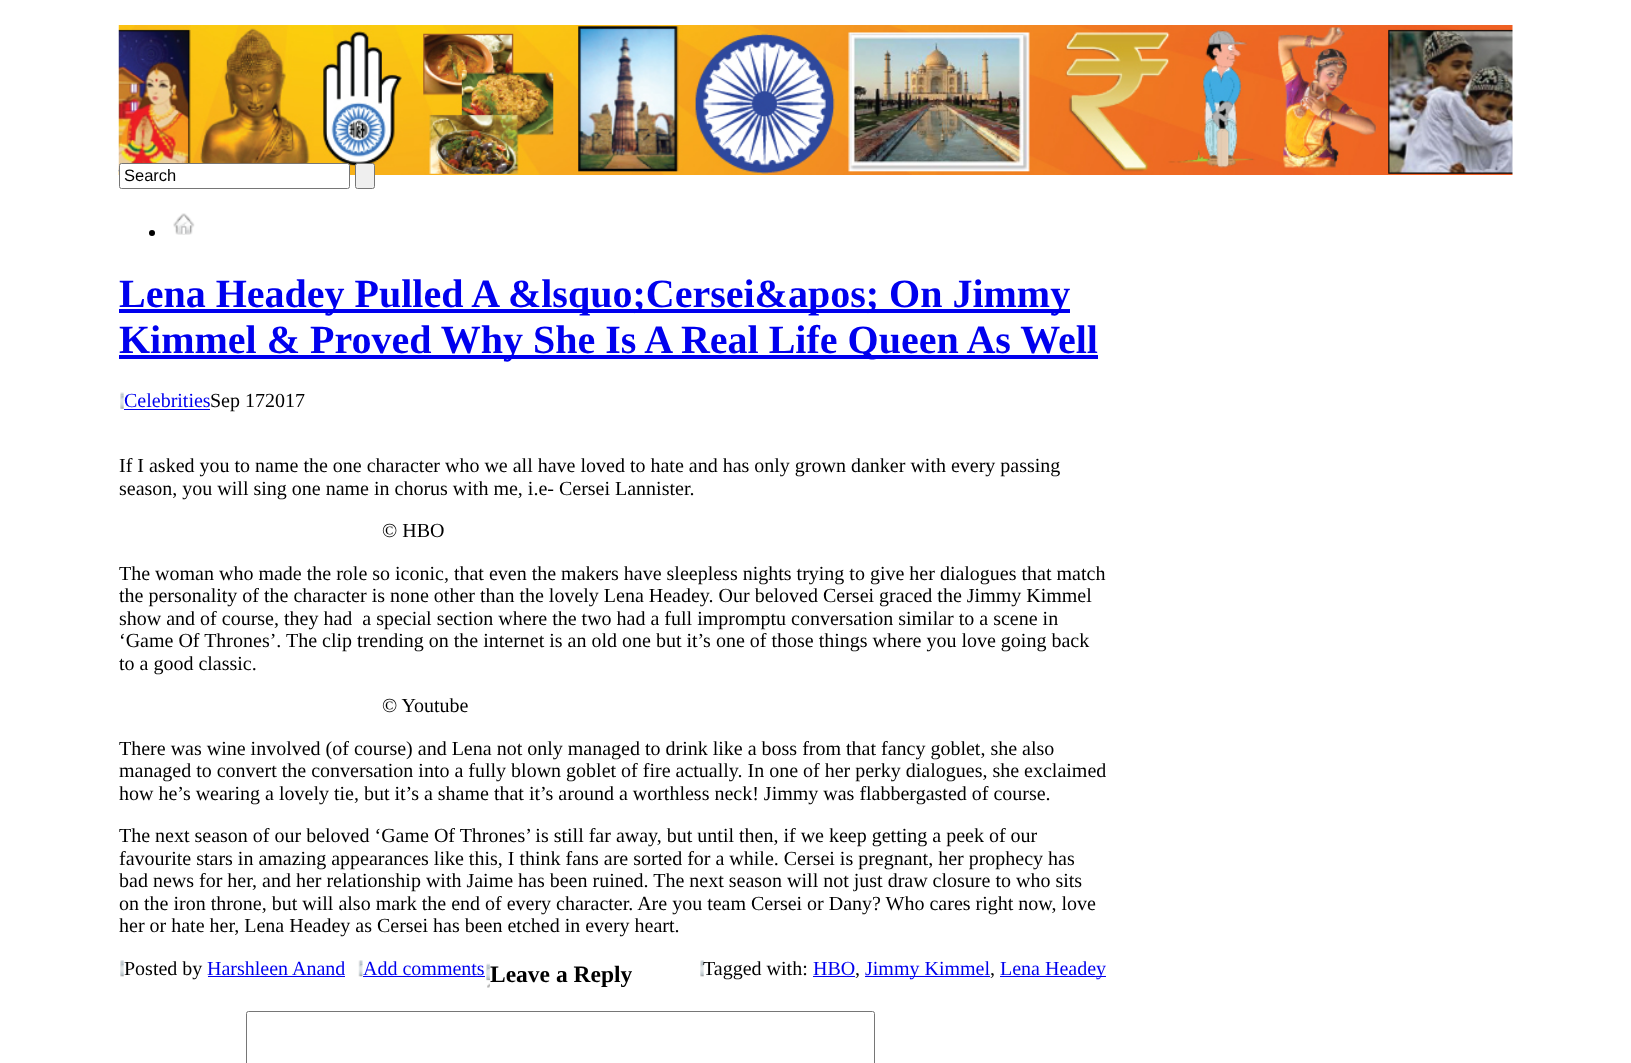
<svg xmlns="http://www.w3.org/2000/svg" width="1631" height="1063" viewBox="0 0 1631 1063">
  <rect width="100%" height="100%" fill="#fff"/>
  <image x="118" y="25" width="1395" height="150" href="img/1.png"/>
  <rect x="119.5" y="163.5" width="230" height="25" rx="2" fill="#fff" stroke="#767676"/>
  <rect x="355.5" y="163.5" width="19" height="25" rx="2" fill="#efefef" stroke="#767676"/>
  <circle cx="152" cy="233" r="3" fill="#000"/>
  <image x="173" y="213" width="22" height="22" href="img/2.png"/>
  <path d="M119 309h951v4H119z" fill="#00e"/>
  <path d="M119 355h979v4H119z" fill="#00e"/>
  <image x="120" y="392" width="4" height="17" href="img/3.png"/>
  <path d="M124 409h86v1H124z" fill="#00e"/>
  <image x="120" y="960" width="4" height="17" href="img/4.png"/>
  <path d="M208 976h137v1H208z" fill="#00e"/>
  <image x="358" y="960" width="5" height="17" href="img/5.png"/>
  <path d="M363 976h122v1H363z" fill="#00e"/>
  <image x="700" y="960" width="4" height="17" href="img/4.png"/>
  <path d="M813 976h42v1H813z" fill="#00e"/>
  <path d="M865 976h125v1H865z" fill="#00e"/>
  <path d="M1000 976h106v1H1000z" fill="#00e"/>
  <image x="486" y="963" width="4" height="25" href="img/6.png"/>
  <rect x="246.5" y="1011.5" width="628" height="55" rx="2" fill="none" stroke="#767676"/>
  <text x="124" y="181" font-family="Liberation Sans" font-size="16.5" fill="#000">Search</text>
  <g font-family="Liberation Serif" font-size="40" font-weight="bold" fill="#00e">
    <text x="119" y="307">Lena Headey Pulled A &amp;lsquo;Cersei&amp;apos; On Jimmy</text>
    <text x="119" y="353">Kimmel &amp; Proved Why She Is A Real Life Queen As Well</text>
  </g>
  <text x="124" y="407" font-family="Liberation Serif" font-size="20" fill="#00e">Celebrities</text>
  <g font-family="Liberation Serif" font-size="20" fill="#000">
    <text x="210" y="407">Sep 172017</text>
    <text x="119" y="472">If I asked you to name the one character who we all have loved to hate and has only grown danker with every passing</text>
    <text x="119" y="495">season, you will sing one name in chorus with me, i.e- Cersei Lannister.</text>
    <text x="382" y="537">© HBO</text>
    <text x="119" y="580">The woman who made the role so iconic, that even the makers have sleepless nights trying to give her dialogues that match</text>
    <text x="119" y="602">the personality of the character is none other than the lovely Lena Headey. Our beloved Cersei graced the Jimmy Kimmel</text>
    <text x="119" y="625" xml:space="preserve">show and of course, they had  a special section where the two had a full impromptu conversation similar to a scene in</text>
    <text x="119" y="647">‘Game Of Thrones’. The clip trending on the internet is an old one but it’s one of those things where you love going back</text>
    <text x="119" y="670">to a good classic.</text>
    <text x="382" y="712">© Youtube</text>
    <text x="119" y="755">There was wine involved (of course) and Lena not only managed to drink like a boss from that fancy goblet, she also</text>
    <text x="119" y="777">managed to convert the conversation into a fully blown goblet of fire actually. In one of her perky dialogues, she exclaimed</text>
    <text x="119" y="800">how he’s wearing a lovely tie, but it’s a shame that it’s around a worthless neck! Jimmy was flabbergasted of course.</text>
    <text x="119" y="842">The next season of our beloved ‘Game Of Thrones’ is still far away, but until then, if we keep getting a peek of our</text>
    <text x="119" y="865">favourite stars in amazing appearances like this, I think fans are sorted for a while. Cersei is pregnant, her prophecy has</text>
    <text x="119" y="887">bad news for her, and her relationship with Jaime has been ruined. The next season will not just draw closure to who sits</text>
    <text x="119" y="910">on the iron throne, but will also mark the end of every character. Are you team Cersei or Dany? Who cares right now, love</text>
    <text x="119" y="932">her or hate her, Lena Headey as Cersei has been etched in every heart.</text>
    <text x="124" y="975">Posted by</text>
  </g>
  <g font-family="Liberation Serif" font-size="20" fill="#00e">
    <text x="207" y="975">Harshleen Anand</text>
    <text x="363" y="975">Add comments</text>
  </g>
  <text x="703" y="975" font-family="Liberation Serif" font-size="20" fill="#000">Tagged with:</text>
  <text x="813" y="975" font-family="Liberation Serif" font-size="20" fill="#00e">HBO</text>
  <text x="855" y="975" font-family="Liberation Serif" font-size="20" fill="#000">,</text>
  <text x="865" y="975" font-family="Liberation Serif" font-size="20" fill="#00e">Jimmy Kimmel</text>
  <text x="990" y="975" font-family="Liberation Serif" font-size="20" fill="#000">,</text>
  <text x="1000" y="975" font-family="Liberation Serif" font-size="20" fill="#00e">Lena Headey</text>
  <text x="490" y="982" font-family="Liberation Serif" font-size="23.5" font-weight="bold" fill="#000">Leave a Reply</text>
</svg>
